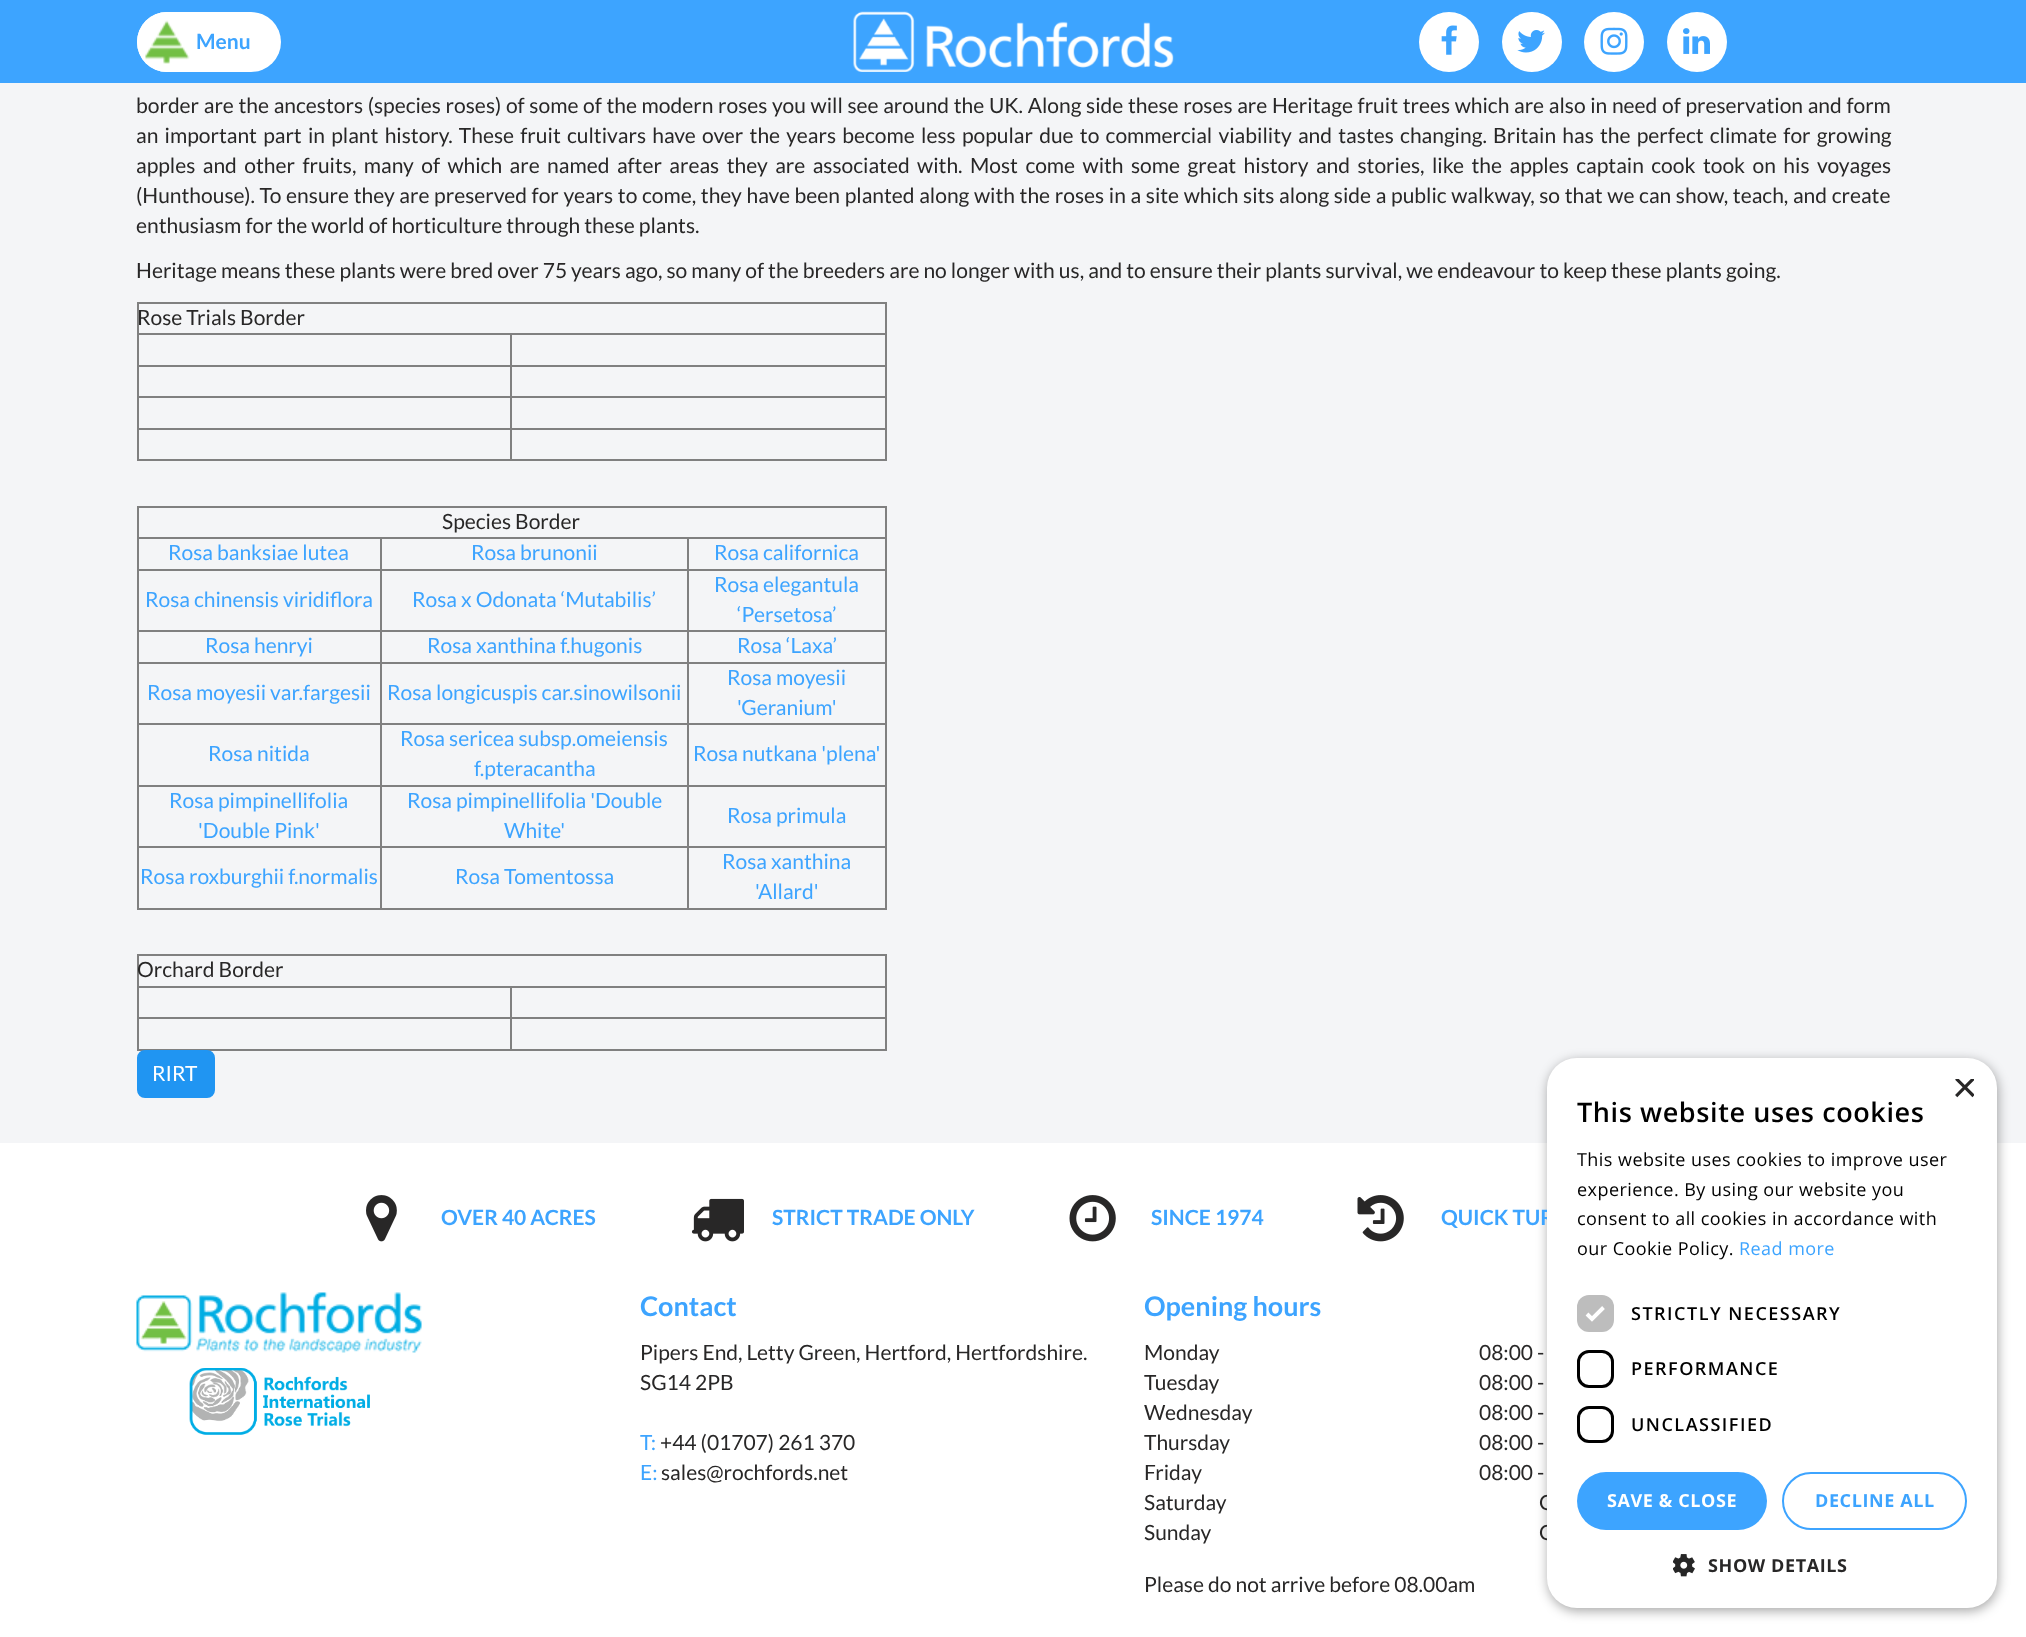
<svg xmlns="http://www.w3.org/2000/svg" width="2026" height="1637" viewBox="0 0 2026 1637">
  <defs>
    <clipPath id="clip1"><path d="M1952 1079h22v22H1952z"/></clipPath>
  </defs>
  <rect width="100%" height="100%" fill="#f4f5f7"/>
  <path d="M0 0h2026v83H0z" fill="#3da4ff"/>
  <image x="853" y="11" width="321" height="61" href="img/1.png"/>
  <rect x="137" y="12" width="144" height="60" rx="30" fill="#fff"/>
  <circle cx="167" cy="42" r="30" fill="#fff"/>
  <image x="145" y="20" width="45" height="44" href="img/2.png"/>
  <circle cx="1449" cy="42" r="30" fill="#fff"/>
  <image x="1441" y="25" width="16" height="30" href="img/3.png"/>
  <circle cx="1532" cy="42" r="30" fill="#fff"/>
  <image x="1517" y="30" width="28" height="23" href="img/4.png"/>
  <circle cx="1614" cy="42" r="30" fill="#fff"/>
  <image x="1600" y="27" width="28" height="28" href="img/5.png"/>
  <circle cx="1697" cy="42" r="30" fill="#fff"/>
  <image x="1683" y="28" width="27" height="26" href="img/6.png"/>
  <path d="M137 302h750v2H137z" fill="#808080"/>
  <path d="M885 302h2v159H885z" fill="#808080"/>
  <path d="M137 459h750v2H137z" fill="#808080"/>
  <path d="M137 302h2v159H137z" fill="#808080"/>
  <path d="M510 333h377v2H510z" fill="#808080"/>
  <path d="M510 365h377v2H510z" fill="#808080"/>
  <path d="M510 396h377v2H510z" fill="#808080"/>
  <path d="M510 428h377v2H510z" fill="#808080"/>
  <path d="M510 428h2v33H510z" fill="#808080"/>
  <path d="M137 428h375v2H137z" fill="#808080"/>
  <path d="M510 396h2v33H510z" fill="#808080"/>
  <path d="M137 396h375v2H137z" fill="#808080"/>
  <path d="M510 365h2v33H510z" fill="#808080"/>
  <path d="M137 365h375v2H137z" fill="#808080"/>
  <path d="M510 333h2v33H510z" fill="#808080"/>
  <path d="M137 333h375v2H137z" fill="#808080"/>
  <path d="M137 506h750v2H137z" fill="#808080"/>
  <path d="M885 506h2v403H885z" fill="#808080"/>
  <path d="M137 908h750v2H137z" fill="#808080"/>
  <path d="M137 506h2v403H137z" fill="#808080"/>
  <path d="M687 537h200v2H687z" fill="#808080"/>
  <path d="M687 569h200v2H687z" fill="#808080"/>
  <path d="M687 630h200v2H687z" fill="#808080"/>
  <path d="M687 662h200v2H687z" fill="#808080"/>
  <path d="M687 723h200v2H687z" fill="#808080"/>
  <path d="M687 785h200v2H687z" fill="#808080"/>
  <path d="M687 846h200v2H687z" fill="#808080"/>
  <path d="M687 846h2v63H687z" fill="#808080"/>
  <path d="M380 846h309v2H380z" fill="#808080"/>
  <path d="M687 785h2v63H687z" fill="#808080"/>
  <path d="M380 785h309v2H380z" fill="#808080"/>
  <path d="M687 723h2v63H687z" fill="#808080"/>
  <path d="M380 723h309v2H380z" fill="#808080"/>
  <path d="M687 662h2v63H687z" fill="#808080"/>
  <path d="M380 662h309v2H380z" fill="#808080"/>
  <path d="M687 630h2v33H687z" fill="#808080"/>
  <path d="M380 630h309v2H380z" fill="#808080"/>
  <path d="M687 569h2v63H687z" fill="#808080"/>
  <path d="M380 569h309v2H380z" fill="#808080"/>
  <path d="M687 537h2v33H687z" fill="#808080"/>
  <path d="M380 537h309v2H380z" fill="#808080"/>
  <path d="M380 846h2v63H380z" fill="#808080"/>
  <path d="M137 846h244v2H137z" fill="#808080"/>
  <path d="M380 785h2v63H380z" fill="#808080"/>
  <path d="M137 785h244v2H137z" fill="#808080"/>
  <path d="M380 723h2v63H380z" fill="#808080"/>
  <path d="M137 723h244v2H137z" fill="#808080"/>
  <path d="M380 662h2v63H380z" fill="#808080"/>
  <path d="M137 662h244v2H137z" fill="#808080"/>
  <path d="M380 630h2v33H380z" fill="#808080"/>
  <path d="M137 630h244v2H137z" fill="#808080"/>
  <path d="M380 569h2v63H380z" fill="#808080"/>
  <path d="M137 569h244v2H137z" fill="#808080"/>
  <path d="M380 537h2v33H380z" fill="#808080"/>
  <path d="M137 537h244v2H137z" fill="#808080"/>
  <path d="M137 954h750v2H137z" fill="#808080"/>
  <path d="M885 954h2v96H885z" fill="#808080"/>
  <path d="M137 1049h750v2H137z" fill="#808080"/>
  <path d="M137 954h2v96H137z" fill="#808080"/>
  <path d="M510 986h377v2H510z" fill="#808080"/>
  <path d="M510 1017h377v2H510z" fill="#808080"/>
  <path d="M510 1017h2v33H510z" fill="#808080"/>
  <path d="M137 1017h375v2H137z" fill="#808080"/>
  <path d="M510 986h2v33H510z" fill="#808080"/>
  <path d="M137 986h375v2H137z" fill="#808080"/>
  <rect x="138" y="1051" width="76" height="46" rx="7" fill="#2095f2" stroke="#2095f2" stroke-width="2"/>
  <path d="M0 1143h2026v494H0z" fill="#fff"/>
  <image x="366" y="1195" width="31" height="47" href="img/7.png"/>
  <image x="691" y="1198" width="53" height="44" href="img/8.png"/>
  <image x="1069" y="1195" width="47" height="47" href="img/9.png"/>
  <image x="1357" y="1195" width="47" height="47" href="img/10.png"/>
  <image x="136" y="1292" width="286" height="61" href="img/11.png"/>
  <image x="189" y="1368" width="181" height="67" href="img/12.png"/>
  <rect x="1548" y="1061" width="450" height="550" rx="30" fill="#00000059" filter="blur(6px)"/>
  <text x="196" y="49" font-family="Lato" font-size="21" font-weight="bold" fill="#3da4ff">Menu</text>
  <g font-family="Lato" font-size="21" fill="#282727">
    <text x="136" y="113" word-spacing="0.6">border are the ancestors (species roses) of some of the modern roses you will see around the UK. Along side these roses are Heritage fruit trees which are also in need of preservation and form</text>
    <text x="136" y="143" word-spacing="2.2">an important part in plant history. These fruit cultivars have over the years become less popular due to commercial viability and tastes changing. Britain has the perfect climate for growing</text>
    <text x="136" y="173" word-spacing="3.4">apples and other fruits, many of which are named after areas they are associated with. Most come with some great history and stories, like the apples captain cook took on his voyages</text>
    <text x="136" y="203" word-spacing="0.6">(Hunthouse). To ensure they are preserved for years to come, they have been planted along with the roses in a site which sits along side a public walkway, so that we can show, teach, and create</text>
    <text x="136" y="233">enthusiasm for the world of horticulture through these plants.</text>
    <text x="136" y="278">Heritage means these plants were bred over 75 years ago, so many of the breeders are no longer with us, and to ensure their plants survival, we endeavour to keep these plants going.</text>
    <text x="137" y="325">Rose Trials Border</text>
    <text x="442" y="529">Species Border</text>
  </g>
  <g font-family="Lato" font-size="21" fill="#3da4ff">
    <text x="168" y="560">Rosa banksiae lutea</text>
    <text x="471" y="560">Rosa brunonii</text>
    <text x="714" y="560">Rosa californica</text>
    <text x="145" y="607">Rosa chinensis viridiflora</text>
    <text x="412" y="607">Rosa x Odonata ‘Mutabilis’</text>
    <text x="714" y="592">Rosa elegantula</text>
    <text x="737" y="622">‘Persetosa’</text>
    <text x="205" y="653">Rosa henryi</text>
    <text x="427" y="653">Rosa xanthina f.hugonis</text>
    <text x="737" y="653">Rosa ‘Laxa’</text>
    <text x="147" y="700">Rosa moyesii var.fargesii</text>
    <text x="387" y="700">Rosa longicuspis car.sinowilsonii</text>
    <text x="727" y="685">Rosa moyesii</text>
    <text x="737" y="715">'Geranium'</text>
    <text x="208" y="761">Rosa nitida</text>
    <text x="400" y="746">Rosa sericea subsp.omeiensis</text>
    <text x="474" y="776">f.pteracantha</text>
    <text x="693" y="761">Rosa nutkana 'plena'</text>
    <text x="169" y="808">Rosa pimpinellifolia</text>
    <text x="198" y="838">'Double Pink'</text>
    <text x="407" y="808">Rosa pimpinellifolia 'Double</text>
    <text x="504" y="838">White'</text>
    <text x="727" y="823">Rosa primula</text>
    <text x="140" y="884">Rosa roxburghii f.normalis</text>
    <text x="455" y="884">Rosa Tomentossa</text>
    <text x="722" y="869">Rosa xanthina</text>
    <text x="755" y="899">'Allard'</text>
  </g>
  <text x="137" y="977" font-family="Lato" font-size="21" fill="#282727">Orchard Border</text>
  <text x="152" y="1081" font-family="Lato" font-size="21" fill="#fff">RIRT</text>
  <g font-family="Lato" font-size="21" font-weight="bold" fill="#3da4ff">
    <text x="441" y="1225">OVER 40 ACRES</text>
    <text x="772" y="1225">STRICT TRADE ONLY</text>
    <text x="1151" y="1225">SINCE 1974</text>
    <text x="1441" y="1225">QUICK TUR</text>
  </g>
  <text x="640" y="1316" font-family="Lato" font-size="27" font-weight="bold" fill="#3da4ff">Contact</text>
  <g font-family="Lato" font-size="21" fill="#282727">
    <text x="640" y="1360">Pipers End, Letty Green, Hertford, Hertfordshire.</text>
    <text x="640" y="1390">SG14 2PB</text>
  </g>
  <text x="640" y="1450" font-family="Lato" font-size="21" fill="#3da4ff">T:</text>
  <text x="660" y="1450" font-family="Lato" font-size="21" fill="#282727">+44 (01707) 261 370</text>
  <text x="640" y="1480" font-family="Lato" font-size="21" fill="#3da4ff">E:</text>
  <text x="661" y="1480" font-family="Lato" font-size="21" fill="#282727">sales@rochfords.net</text>
  <text x="1144" y="1316" font-family="Lato" font-size="27" font-weight="bold" fill="#3da4ff">Opening hours</text>
  <g font-family="Lato" font-size="21" fill="#282727">
    <text x="1144" y="1360">Monday</text>
    <text x="1479" y="1360">08:00 -</text>
    <text x="1144" y="1390">Tuesday</text>
    <text x="1479" y="1390">08:00 -</text>
    <text x="1144" y="1420">Wednesday</text>
    <text x="1479" y="1420">08:00 -</text>
    <text x="1144" y="1450">Thursday</text>
    <text x="1479" y="1450">08:00 -</text>
    <text x="1144" y="1480">Friday</text>
    <text x="1479" y="1480">08:00 -</text>
    <text x="1144" y="1510">Saturday</text>
    <text x="1539" y="1510">C</text>
    <text x="1144" y="1540">Sunday</text>
    <text x="1539" y="1540">C</text>
    <text x="1144" y="1592">Please do not arrive before 08.00am</text>
  </g>
  <rect x="1547" y="1058" width="450" height="550" rx="30" fill="#fff"/>
  <g clip-path="url(#clip1)">
    <text x="1952" y="1102" font-family="Liberation Sans" font-size="44" fill="#282727">×</text>
  </g>
  <text x="1577" y="1122" font-family="Open Sans" font-size="27" font-weight="600" letter-spacing="0.6" fill="#000">This website uses cookies</text>
  <g font-family="Open Sans" font-size="18" letter-spacing="0.45" fill="#000">
    <text x="1577" y="1166">This website uses cookies to improve user</text>
    <text x="1577" y="1196">experience. By using our website you</text>
    <text x="1577" y="1225">consent to all cookies in accordance with</text>
    <text x="1577" y="1255">our Cookie Policy.</text>
  </g>
  <text x="1739" y="1255" font-family="Open Sans" font-size="18" letter-spacing="0.45" fill="#3da4ff">Read more</text>
  <rect x="1577" y="1295" width="37" height="37" rx="12" fill="#bdbdbd"/>
  <path d="M1587 1314L1592 1319L1603.5 1307.5" fill="none" stroke="#fff" stroke-width="3.9"/>
  <text x="1631" y="1320" font-family="Open Sans" font-size="18" font-weight="600" letter-spacing="1.5" fill="#000">STRICTLY NECESSARY</text>
  <rect x="1578.5" y="1351.5" width="34" height="35" rx="10.5" fill="none" stroke="#000" stroke-width="3"/>
  <text x="1631" y="1375" font-family="Open Sans" font-size="18" font-weight="600" letter-spacing="1.5" fill="#000">PERFORMANCE</text>
  <rect x="1578.5" y="1407.5" width="34" height="34" rx="10.5" fill="none" stroke="#000" stroke-width="3"/>
  <text x="1631" y="1431" font-family="Open Sans" font-size="18" font-weight="600" letter-spacing="1.5" fill="#000">UNCLASSIFIED</text>
  <rect x="1577" y="1472" width="190" height="58" rx="29" fill="#3da4ff"/>
  <text x="1607" y="1507" font-family="Open Sans" font-size="18" font-weight="bold" letter-spacing="0.6" fill="#fff">SAVE &amp; CLOSE</text>
  <rect x="1783" y="1473" width="183" height="56" rx="28" fill="none" stroke="#3da4ff" stroke-width="2"/>
  <text x="1815" y="1507" font-family="Open Sans" font-size="18" font-weight="bold" letter-spacing="0.6" fill="#3da4ff">DECLINE ALL</text>
  <image x="1673" y="1554" width="22" height="23" href="img/13.png"/>
  <text x="1708" y="1572" font-family="Open Sans" font-size="18" font-weight="bold" letter-spacing="0.6" fill="#282727">SHOW DETAILS</text>
</svg>
